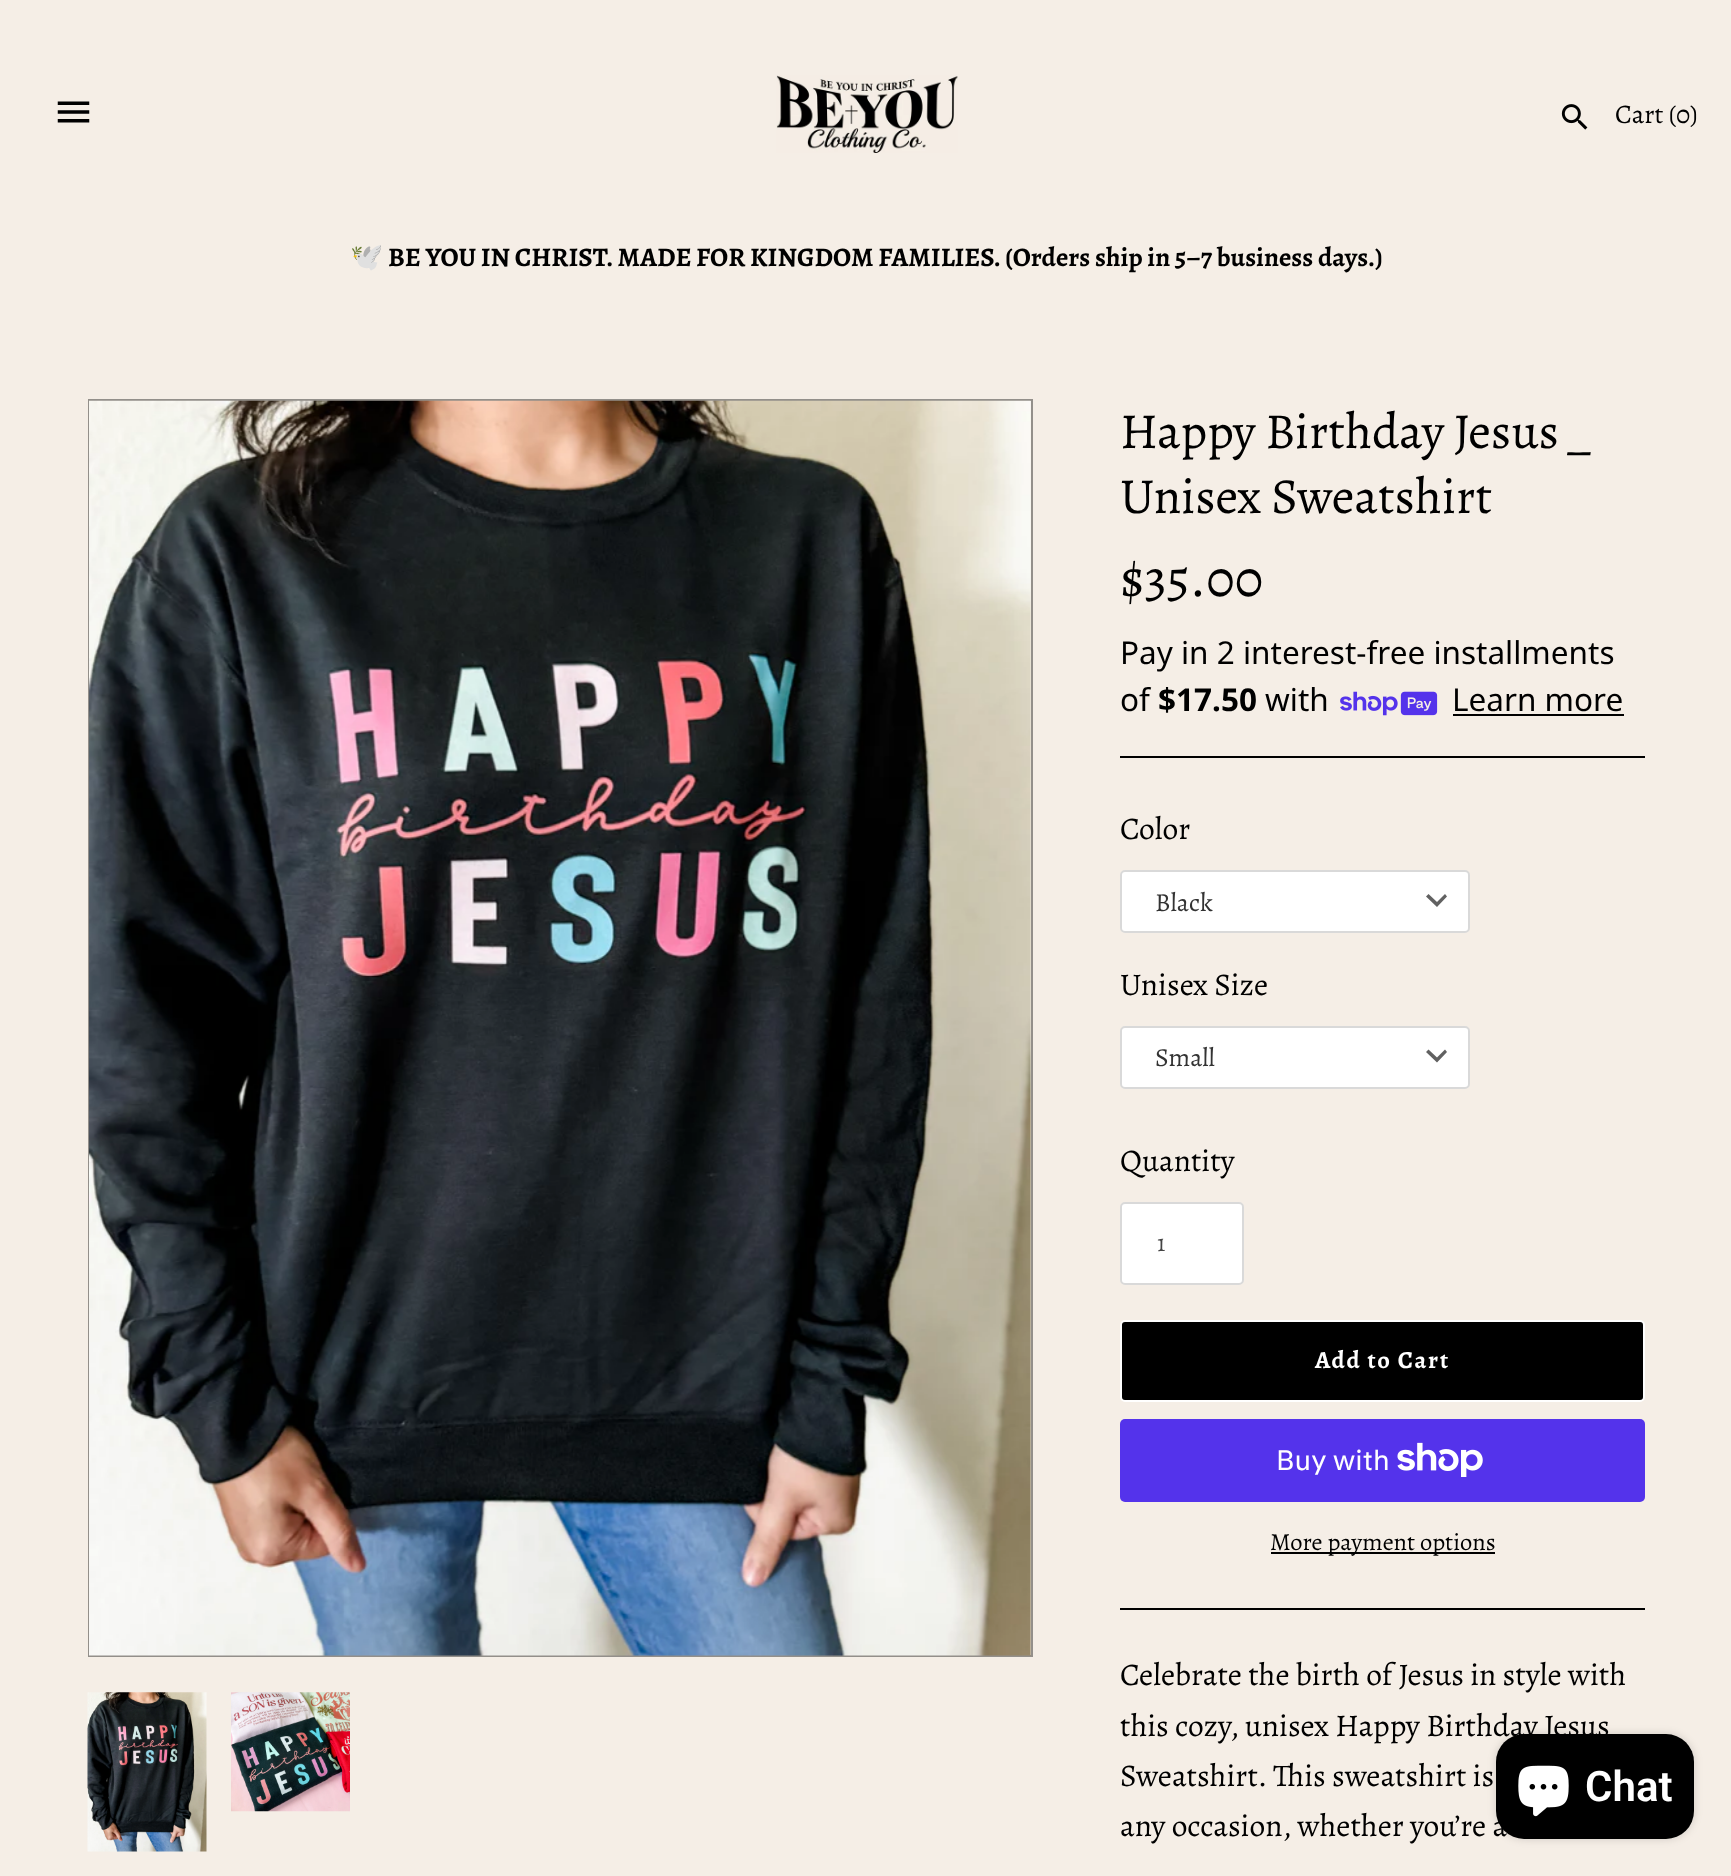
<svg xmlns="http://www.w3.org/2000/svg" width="1731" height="1876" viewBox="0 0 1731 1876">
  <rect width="100%" height="100%" fill="#f5eee6"/>
  <image x="57" y="101" width="33" height="22" href="img/1.png"/>
  <image x="776" y="75" width="182" height="78" href="img/2.png"/>
  <image x="1561" y="104" width="27" height="26" href="img/3.png"/>
  <path d="M89 400h943v1256H89z" fill="none" stroke="#938f8a" stroke-width="2"/>
  <image x="89" y="400" width="942" height="1256" href="img/4.png"/>
  <image x="87" y="1692" width="120" height="160" href="img/5.png"/>
  <image x="231" y="1692" width="119" height="120" href="img/6.png"/>
  <image x="1340" y="691" width="98" height="25" href="img/7.png"/>
  <path d="M1453 714h171v2H1453z" fill="#000"/>
  <path d="M1120 756h525v2H1120z" fill="#000"/>
  <rect x="1120" y="870" width="350" height="63" rx="5" fill="#fff"/>
  <path d="M1428.5 894L1437 902L1445 894L1447 896.5L1437 907L1426 896.5Z" fill="#616161"/>
  <rect x="1121" y="871" width="348" height="61" rx="4" fill="none" stroke="#00000026" stroke-width="2"/>
  <rect x="1120" y="1026" width="350" height="63" rx="5" fill="#fff"/>
  <path d="M1428.5 1049.5L1437 1057.5L1445 1049.5L1447 1052L1437 1062.5L1426 1052Z" fill="#616161"/>
  <rect x="1121" y="1027" width="348" height="61" rx="4" fill="none" stroke="#00000026" stroke-width="2"/>
  <rect x="1120" y="1202" width="124" height="83" rx="5" fill="#fff"/>
  <rect x="1121" y="1203" width="122" height="81" rx="4" fill="none" stroke="#00000026" stroke-width="2"/>
  <rect x="1121" y="1321" width="523" height="80" rx="4" fill="#000" stroke="#fff" stroke-width="2"/>
  <rect x="1120" y="1419" width="525" height="83" rx="5" fill="#5433eb"/>
  <image x="1397" y="1442" width="86" height="35" href="img/8.png"/>
  <path d="M1271 1552h224v2H1271z" fill="#000"/>
  <path d="M1120 1608h525v2H1120z" fill="#000"/>
  <rect x="1496" y="1734" width="198" height="105" rx="28" fill="#00000026" filter="blur(4.5px)"/>
  <rect x="1496" y="1734" width="198" height="105" rx="28" fill="#000"/>
  <image x="1518" y="1765" width="51" height="52" href="img/9.png"/>
  <text x="1615" y="123" font-family="Alegreya" font-size="26.8" fill="#000">Cart (0)</text>
  <text x="350" y="266" font-family="Noto Color Emoji" font-size="26.8" font-weight="bold" fill="#000">🕊️</text>
  <text x="388" y="266" font-family="Alegreya" font-size="26.8" font-weight="bold" fill="#000">BE YOU IN CHRIST. MADE FOR KINGDOM FAMILIES. (Orders ship in 5–7 business days.)</text>
  <g font-family="Alegreya" font-size="50.5" fill="#000">
    <text x="1120" y="448" word-spacing="-0.5">Happy Birthday Jesus _</text>
    <text x="1120" y="513">Unisex Sweatshirt</text>
  </g>
  <text x="1120" y="596" font-family="Alegreya" font-size="53.5" fill="#000">$35.00</text>
  <g font-family="Noto Sans" font-size="31.5" fill="#000">
    <text x="1120" y="664">Pay in 2 interest-free installments</text>
    <text x="1120" y="711">of</text>
  </g>
  <text x="1158" y="711" font-family="Noto Sans" font-size="31.5" font-weight="bold" fill="#000">$17.50</text>
  <g font-family="Noto Sans" font-size="31.5" fill="#000">
    <text x="1265" y="711">with</text>
    <text x="1452" y="711">Learn more</text>
  </g>
  <text x="1120" y="839" font-family="Alegreya" font-size="31.5" fill="#000">Color</text>
  <text x="1155" y="911" font-family="Alegreya" font-size="26" fill="#333">Black</text>
  <text x="1120" y="995" font-family="Alegreya" font-size="31.5" fill="#000">Unisex Size</text>
  <text x="1155" y="1066" font-family="Alegreya" font-size="26" fill="#333">Small</text>
  <text x="1120" y="1171" font-family="Alegreya" font-size="31.5" fill="#000">Quantity</text>
  <text x="1157" y="1251" font-family="Alegreya" font-size="24.5" fill="#444">1</text>
  <text x="1315" y="1368" font-family="Alegreya" font-size="24.5" font-weight="bold" letter-spacing="1.75" fill="#fff">Add to Cart</text>
  <text x="1276" y="1470" font-family="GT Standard" font-size="28" fill="#fff">Buy with</text>
  <text x="1270" y="1550" font-family="Alegreya" font-size="24.5" fill="#000">More payment options</text>
  <g font-family="Alegreya" font-size="31.5" fill="#000">
    <text x="1120" y="1685">Celebrate the birth of Jesus in style with</text>
    <text x="1120" y="1736">this cozy, unisex Happy Birthday Jesus</text>
    <text x="1120" y="1786">Sweatshirt. This sweatshirt is</text>
    <text x="1120" y="1836">any occasion, whether you’re a</text>
  </g>
  <text x="1585" y="1801" font-family="Roboto" font-size="42" font-weight="600" fill="#fff">Chat</text>
</svg>
